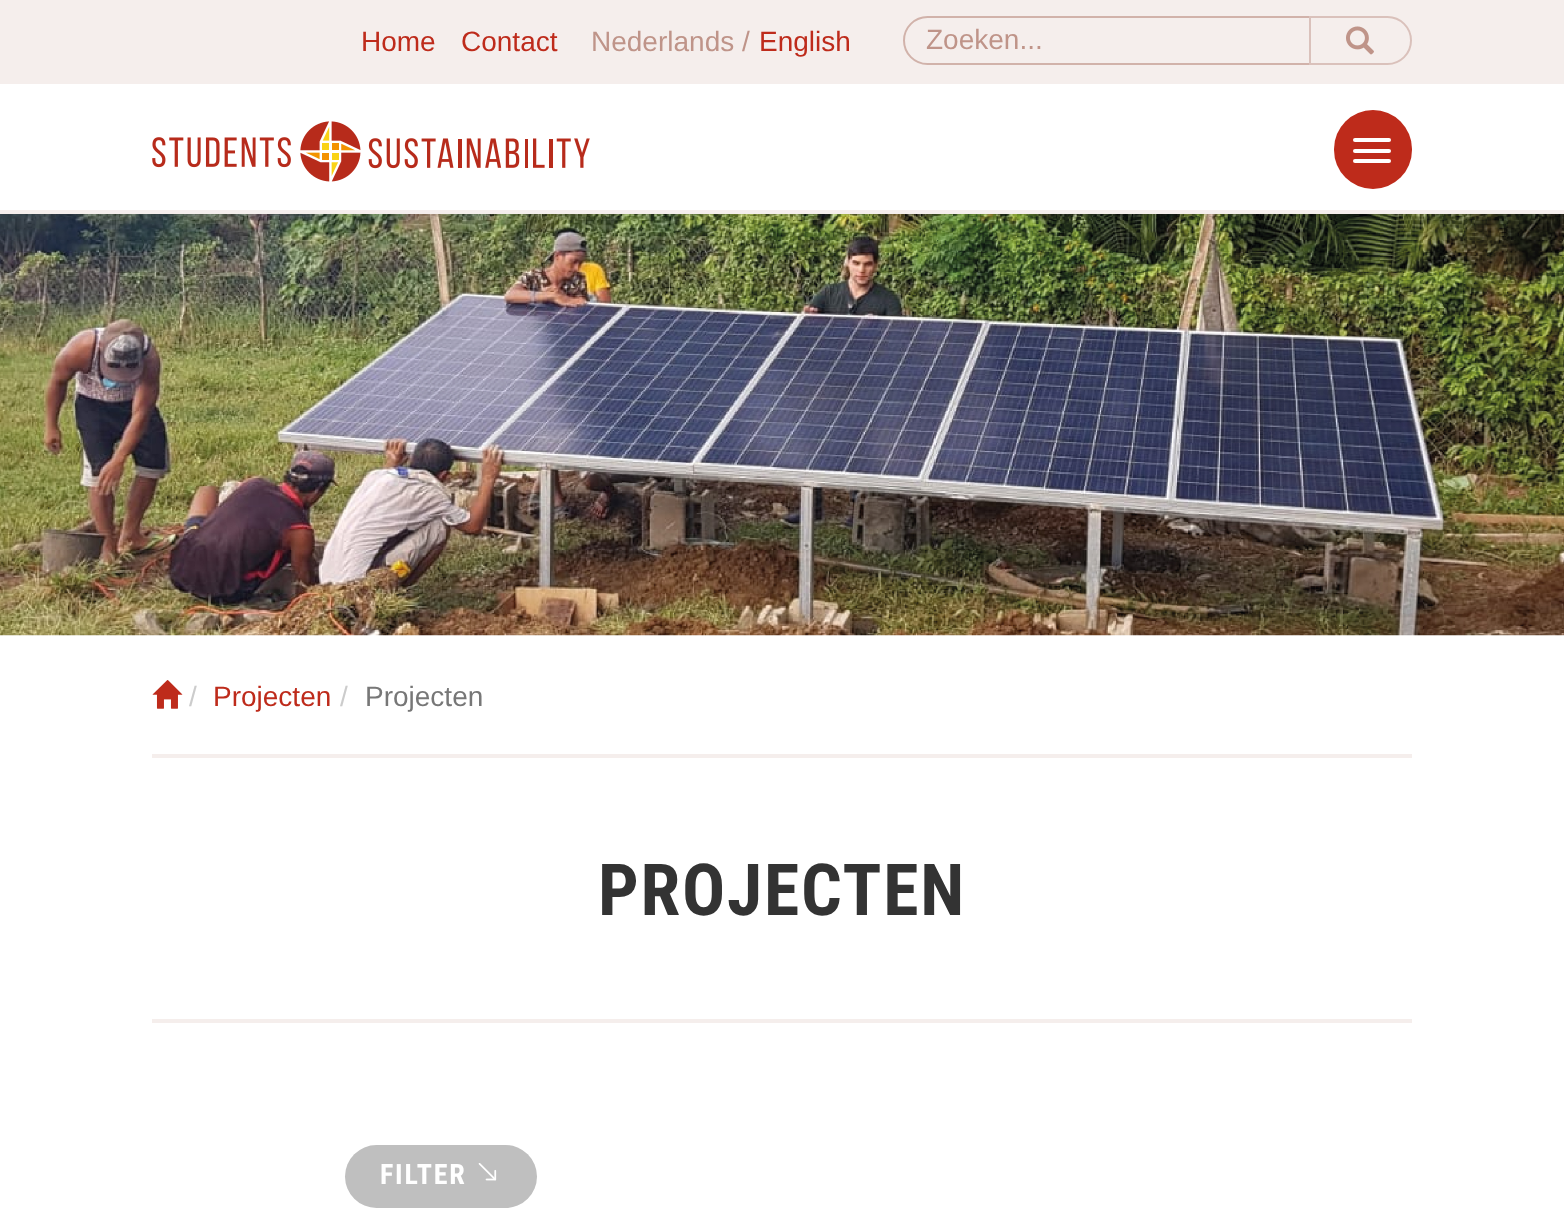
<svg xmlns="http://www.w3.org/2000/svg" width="1564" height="1223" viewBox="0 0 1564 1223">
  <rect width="100%" height="100%" fill="#fff"/>
  <path d="M0 210h1564v4H0z" fill="#f5eeec"/>
  <path d="M0 0h1564v84H0z" fill="#f5eeec"/>
  <path d="M927.5 17H1310V64H927.5C914.5 64 904 53.5 904 40.5C904 27.5 914.5 17 927.5 17Z" fill="none" stroke="#d1b2aa" stroke-width="2"/>
  <path d="M1310 17H1387.5C1400.5 17 1411 27.5 1411 40.5C1411 53.5 1400.5 64 1387.5 64H1310Z" fill="#f5eeec" stroke="#dac1bb" stroke-width="2"/>
  <image x="1346" y="26" width="28" height="29" href="img/1.png"/>
  <image x="152" y="121" width="438" height="61" href="img/2.png"/>
  <rect x="1334" y="110" width="78" height="79" rx="39" fill="#be2b1b"/>
  <rect x="1353" y="138" width="38" height="4" rx="2" fill="#fff"/>
  <rect x="1353" y="149" width="38" height="4" rx="2" fill="#fff"/>
  <rect x="1353" y="159" width="38" height="4" rx="2" fill="#fff"/>
  <image x="0" y="214" width="1564" height="422" href="img/3.png"/>
  <path d="M152 754h1260v4H152z" fill="#f5eeec"/>
  <image x="152" y="680" width="31" height="29" href="img/4.png"/>
  <path d="M152 1019h1260v4H152z" fill="#f5eeec"/>
  <rect x="345" y="1145" width="192" height="63" rx="31.5" fill="#bfbfbf"/>
  <image x="478" y="1163" width="19" height="18" href="img/5.png"/>
  <g font-family="Liberation Sans" font-size="28" fill="#be2b1b">
    <text x="361" y="51">Home</text>
    <text x="461" y="51">Contact</text>
  </g>
  <text x="591" y="51" font-family="Liberation Sans" font-size="28" fill="#bf9489">Nederlands /</text>
  <text x="759" y="51" font-family="Liberation Sans" font-size="28" fill="#be2b1b">English</text>
  <text x="926" y="49" font-family="Liberation Sans" font-size="28" fill="#bf9489">Zoeken...</text>
  <text x="189" y="706" font-family="Liberation Sans" font-size="28" fill="#ccc">/</text>
  <text x="213" y="706" font-family="Liberation Sans" font-size="28" fill="#be2b1b">Projecten</text>
  <text x="340" y="706" font-family="Liberation Sans" font-size="28" fill="#ccc">/</text>
  <text x="365" y="706" font-family="Liberation Sans" font-size="28" fill="#777">Projecten</text>
  <text x="598" y="915" font-family="Roboto Condensed" font-size="71.75" font-weight="bold" letter-spacing="1.75" fill="#333">PROJECTEN</text>
  <text x="380" y="1184" font-family="Roboto Condensed" font-size="28" font-weight="bold" letter-spacing="1.75" fill="#fff">FILTER</text>
</svg>
